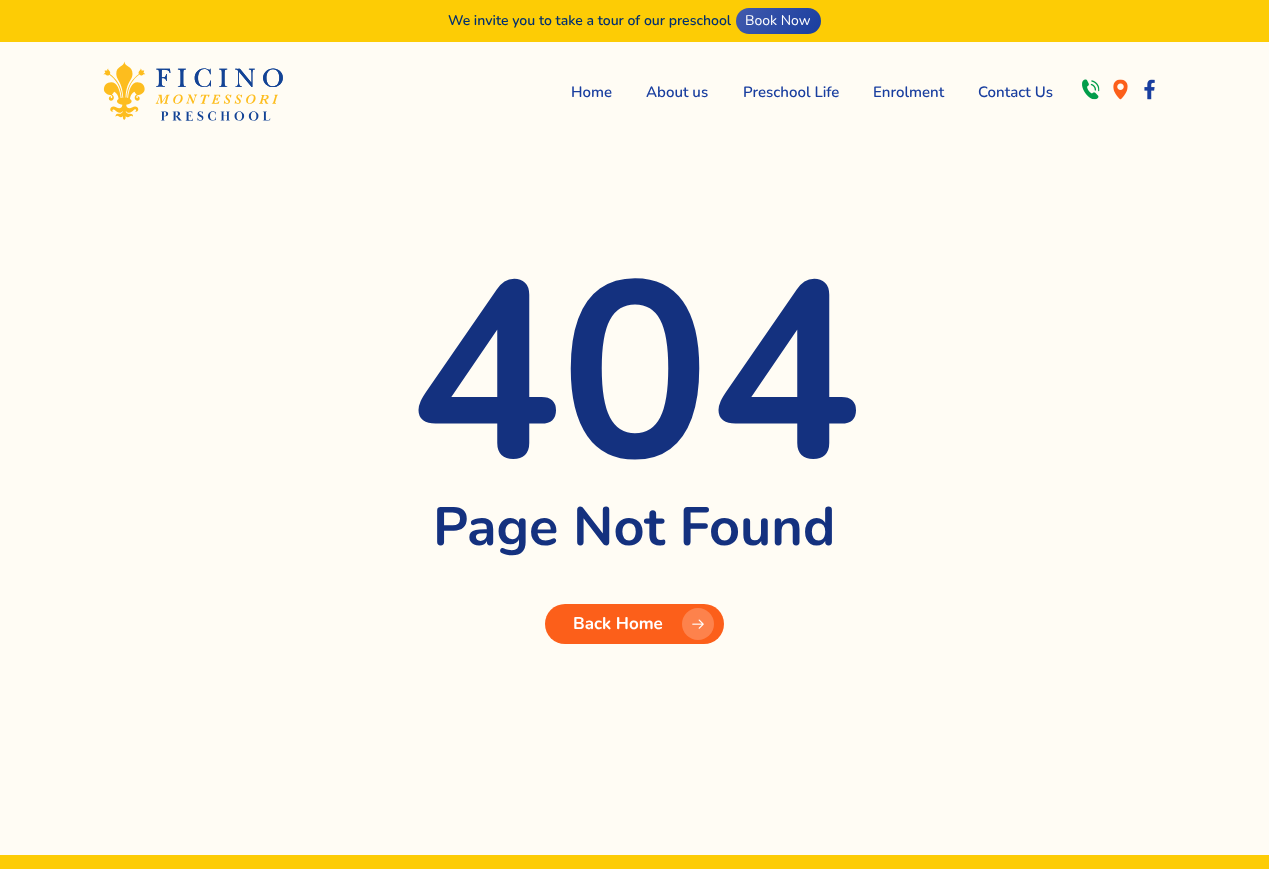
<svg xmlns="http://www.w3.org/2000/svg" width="1269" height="869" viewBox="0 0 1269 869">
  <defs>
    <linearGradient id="g1" gradientUnits="userSpaceOnUse" x1="743" y1="-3.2" x2="813" y2="45"><stop offset="0" stop-color="#425bad"/><stop offset="1" stop-color="#193e9f"/></linearGradient>
  </defs>
  <rect width="100%" height="100%" fill="#fffcf4"/>
  <path d="M0 0h1269v42H0z" fill="#fdcc05"/>
  <rect x="736" y="8" width="85" height="26" rx="13" fill="url(#g1)"/>
  <image x="103" y="61" width="180" height="60" href="img/1.png"/>
  <image x="1082" y="79" width="18" height="21" href="img/2.png"/>
  <image x="1113" y="79" width="15" height="21" href="img/3.png"/>
  <image x="1144" y="79" width="11" height="21" href="img/4.png"/>
  <rect x="545" y="604" width="179" height="40" rx="20" fill="#fc5f1a"/>
  <circle cx="698" cy="624" r="16" fill="#fd824c"/>
  <image x="692" y="619" width="12" height="10" href="img/5.png"/>
  <path d="M0 855h1269v14H0z" fill="#fdcc05"/>
  <text x="448" y="25" font-family="Nunito" font-size="14" font-weight="600" fill="#023070">We invite you to take a tour of our preschool</text>
  <text x="745" y="25" font-family="Nunito" font-size="14" fill="#fff">Book Now</text>
  <g font-family="Nunito" font-size="15" font-weight="600" fill="#193e9f">
    <text x="571" y="97">Home</text>
    <text x="646" y="97">About us</text>
    <text x="743" y="97">Preschool Life</text>
    <text x="873" y="97">Enrolment</text>
    <text x="978" y="97">Contact Us</text>
  </g>
  <text x="410" y="457" font-family="Nunito" font-size="250" font-weight="bold" fill="#14317f">404</text>
  <text x="433" y="545" font-family="Nunito" font-size="54" font-weight="bold" fill="#14317f">Page Not Found</text>
  <text x="573" y="629" font-family="Nunito" font-size="17" font-weight="bold" fill="#fff">Back Home</text>
</svg>
